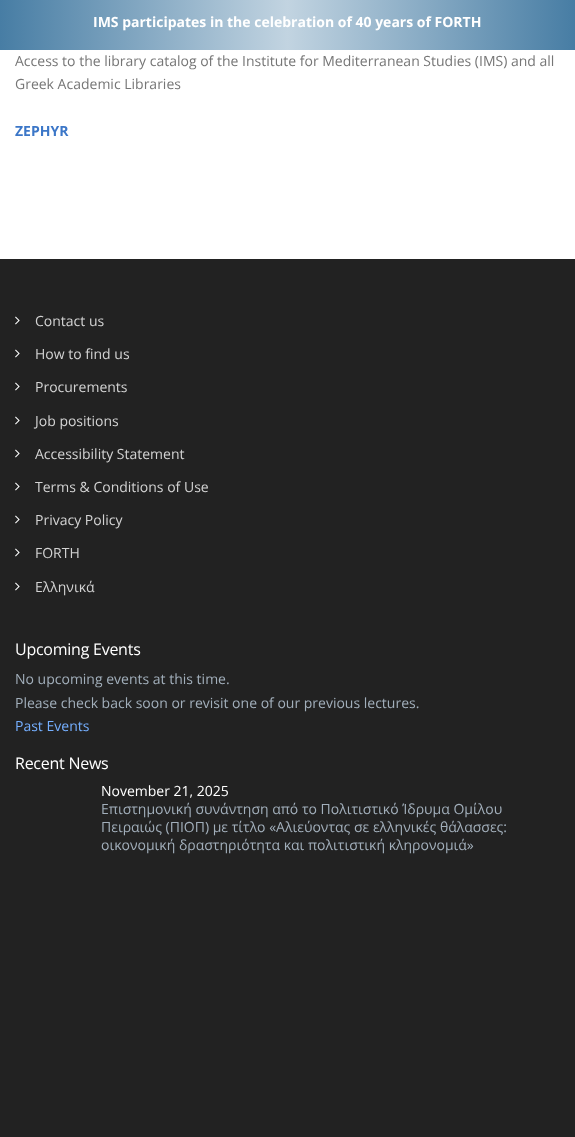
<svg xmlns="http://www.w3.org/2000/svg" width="575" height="1137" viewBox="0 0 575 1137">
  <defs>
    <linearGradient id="g1" gradientUnits="userSpaceOnUse" x1="0" y1="25" x2="575" y2="25"><stop offset="0" stop-color="#477da4"/><stop offset="0.5" stop-color="#c2d4e1"/><stop offset="1" stop-color="#477da4"/></linearGradient>
  </defs>
  <rect width="100%" height="100%" fill="#fff"/>
  <path d="M0 0h575v50H0z" fill="url(#g1)"/>
  <path d="M0 259h575v878H0z" fill="#222"/>
  <image x="15" y="316" width="5" height="9" href="img/1.png"/>
  <image x="15" y="349" width="5" height="9" href="img/1.png"/>
  <image x="15" y="382" width="5" height="9" href="img/1.png"/>
  <image x="15" y="416" width="5" height="9" href="img/1.png"/>
  <image x="15" y="449" width="5" height="9" href="img/1.png"/>
  <image x="15" y="482" width="5" height="9" href="img/1.png"/>
  <image x="15" y="515" width="5" height="9" href="img/1.png"/>
  <image x="15" y="548" width="5" height="9" href="img/1.png"/>
  <image x="15" y="582" width="5" height="9" href="img/1.png"/>
  <text x="93" y="27" font-family="Open Sans" font-size="14" font-weight="bold" fill="#fff">IMS participates in the celebration of 40 years of FORTH</text>
  <g font-family="Open Sans" font-size="14" fill="#767676">
    <text x="15" y="66">Access to the library catalog of the Institute for Mediterranean Studies (IMS) and all</text>
    <text x="15" y="89">Greek Academic Libraries</text>
  </g>
  <text x="15" y="136" font-family="Open Sans" font-size="14" font-weight="bold" fill="#3c77c8">ZEPHYR</text>
  <g font-family="Open Sans" font-size="14" fill="#d3d3d3">
    <text x="35" y="326">Contact us</text>
    <text x="35" y="359">How to find us</text>
    <text x="35" y="392">Procurements</text>
    <text x="35" y="426">Job positions</text>
    <text x="35" y="459">Accessibility Statement</text>
    <text x="35" y="492">Terms &amp; Conditions of Use</text>
    <text x="35" y="525">Privacy Policy</text>
    <text x="35" y="558">FORTH</text>
    <text x="35" y="592">Ελληνικά</text>
  </g>
  <text x="15" y="655" font-family="Open Sans" font-size="16" letter-spacing="-0.25" fill="#fff">Upcoming Events</text>
  <g font-family="Open Sans" font-size="14" fill="#a2afbb">
    <text x="15" y="684">No upcoming events at this time.</text>
    <text x="15" y="708">Please check back soon or revisit one of our previous lectures.</text>
  </g>
  <text x="15" y="731" font-family="Open Sans" font-size="14" fill="#75afff">Past Events</text>
  <text x="15" y="769" font-family="Open Sans" font-size="16" letter-spacing="-0.25" fill="#fff">Recent News</text>
  <text x="101" y="796" font-family="Open Sans" font-size="14" fill="#fff">November 21, 2025</text>
  <g font-family="Open Sans" font-size="14" fill="#a2afbb">
    <text x="101" y="814">Επιστημονική συνάντηση από το Πολιτιστικό Ίδρυμα Ομίλου</text>
    <text x="101" y="832">Πειραιώς (ΠΙΟΠ) με τίτλο «Αλιεύοντας σε ελληνικές θάλασσες:</text>
    <text x="101" y="850">οικονομική δραστηριότητα και πολιτιστική κληρονομιά»</text>
  </g>
</svg>
